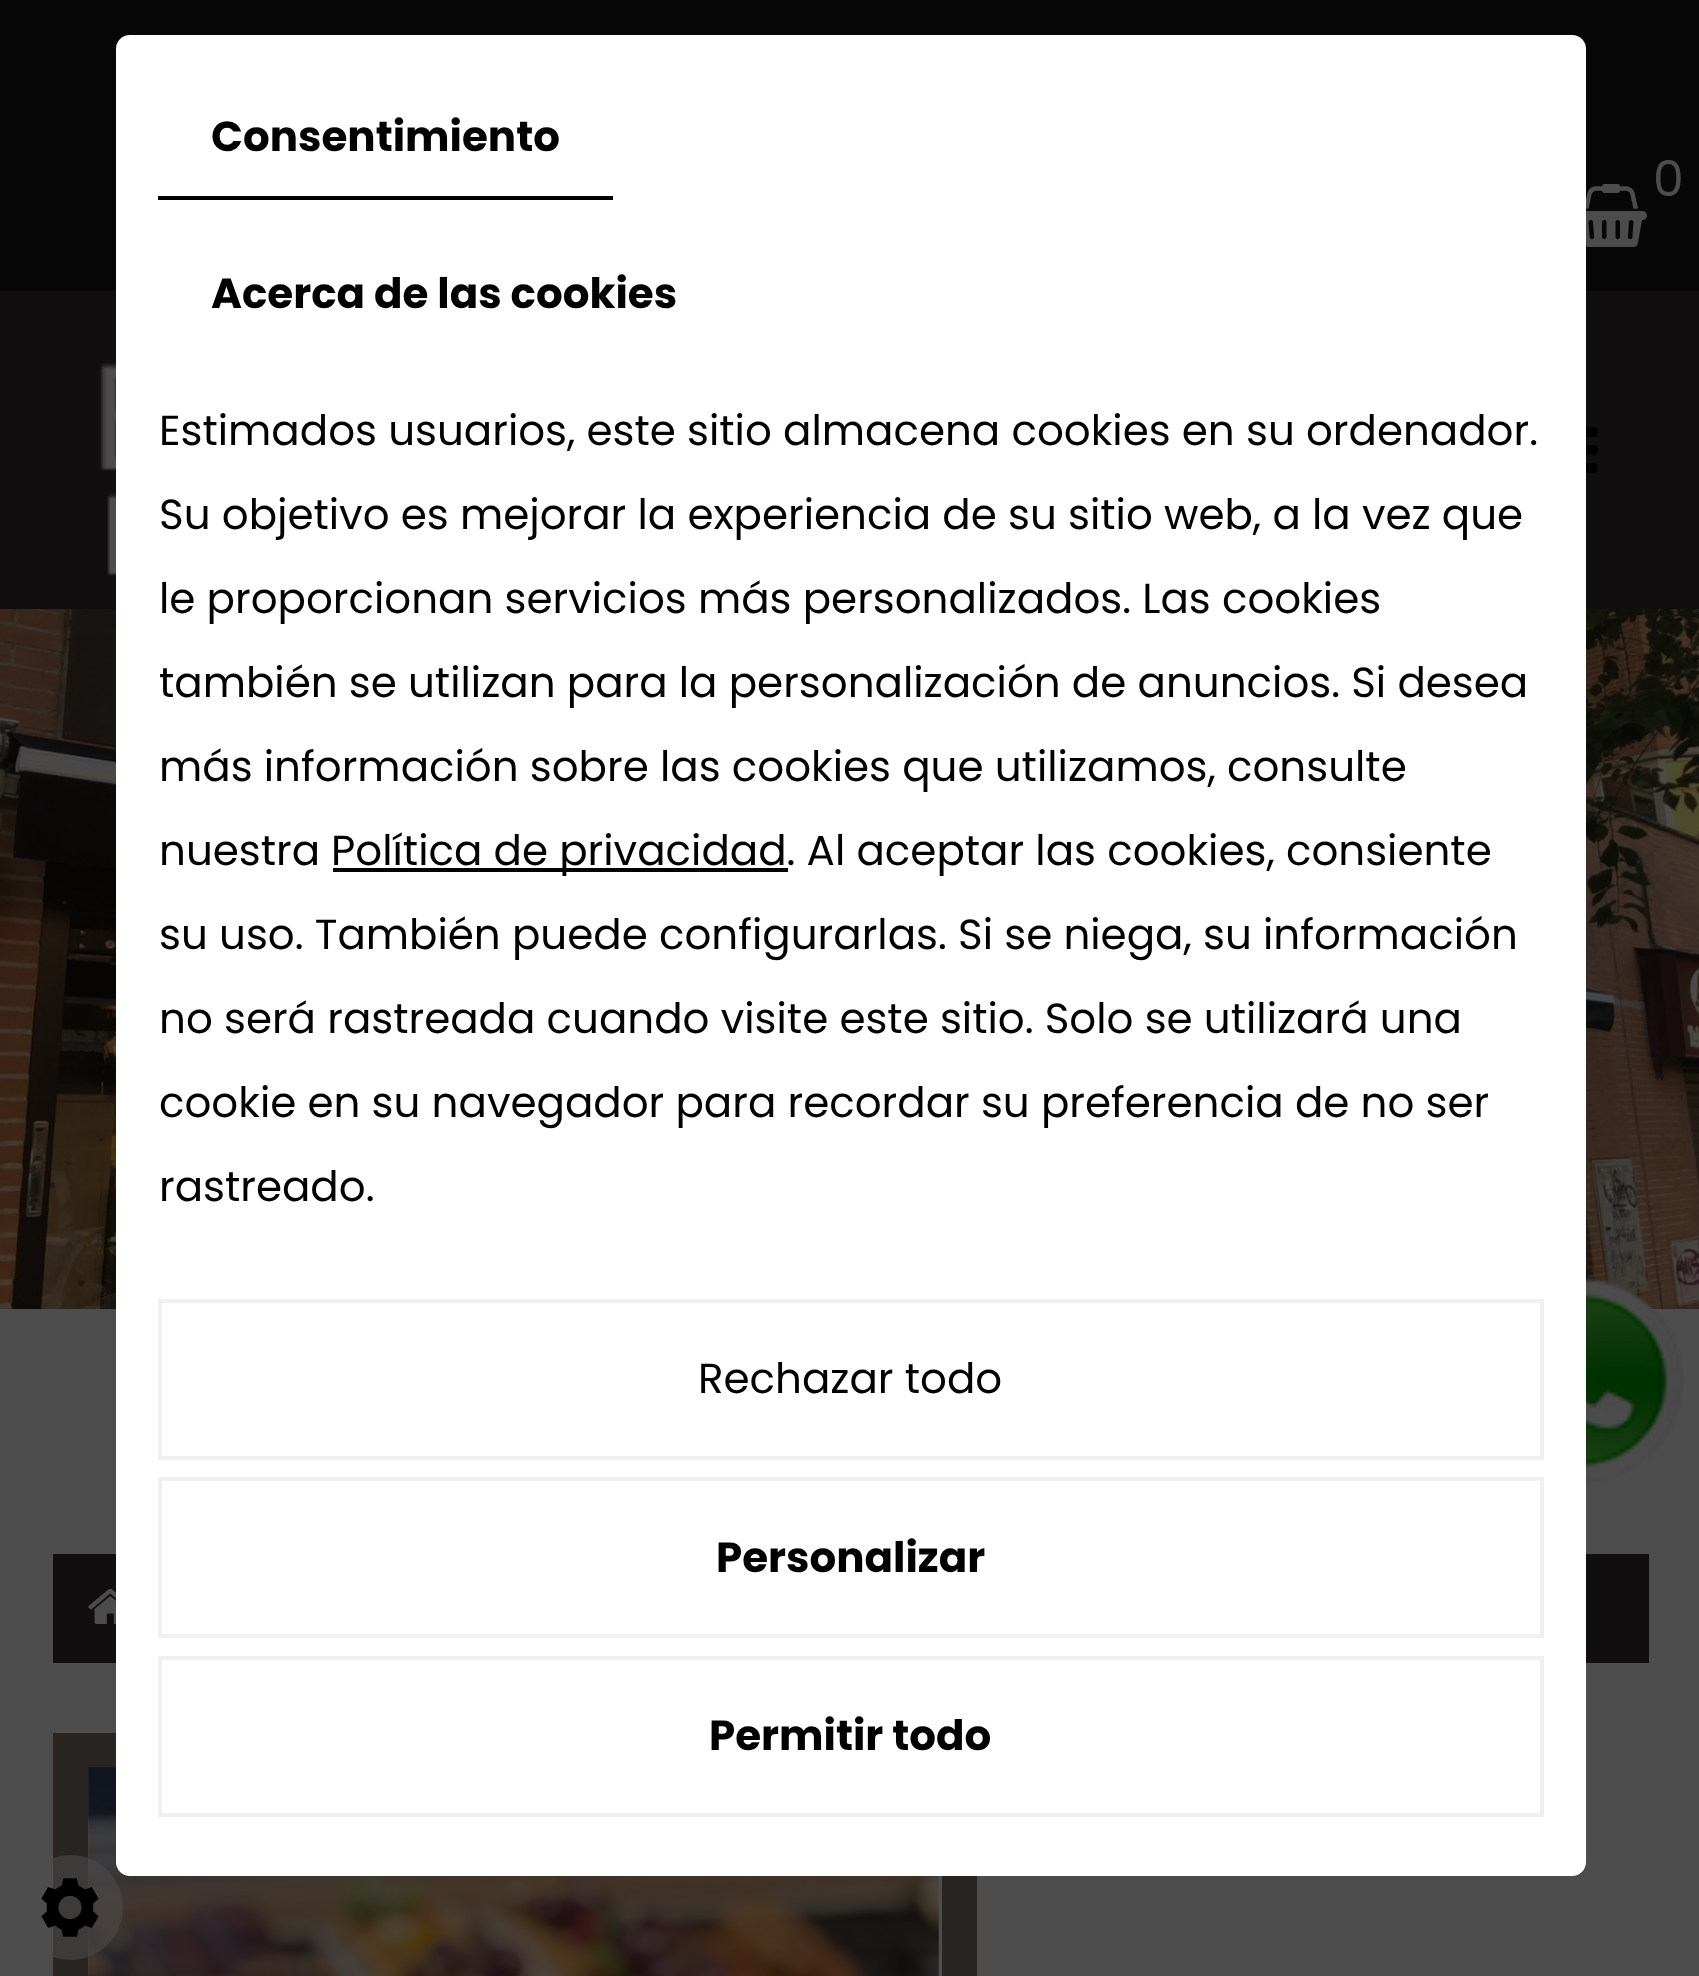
<svg xmlns="http://www.w3.org/2000/svg" width="1699" height="1976" viewBox="0 0 1699 1976">
  <rect width="100%" height="100%" fill="#4d4d4d"/>
  <path d="M0 0h1699v291H0z" fill="#080707"/>
  <path d="M0 291h1699v318H0z" fill="#100e0e"/>
  <image x="0" y="609" width="1699" height="700" href="img/4.png"/>
  <path d="M53 1554h1596v109H53z" fill="#100e0e"/>
  <path d="M70.5 1750.5h889v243H70.5z" fill="none" stroke="#292523" stroke-width="35"/>
  <image x="88" y="1767" width="851" height="209" href="img/7.png"/>
  <circle cx="70.5" cy="1907.5" r="52.5" fill="#4d4d4d8a"/>
  <rect x="116" y="35" width="1470" height="1841" rx="14" fill="#fff"/>
  <path d="M158 196h455v4H158z" fill="#000"/>
  <path d="M333 868h455v4H333z" fill="#000"/>
  <path d="M160 1301h1382v157H160z" fill="none" stroke="#f0f0f0" stroke-width="4"/>
  <path d="M160 1479h1382v157H160z" fill="none" stroke="#f0f0f0" stroke-width="4"/>
  <path d="M160 1658h1382v157H160z" fill="none" stroke="#f0f0f0" stroke-width="4"/>
  <image x="1586" y="184" width="61" height="63" href="img/1.png"/>
  <image x="1586" y="427" width="12" height="46" href="img/2.png"/>
  <image x="100" y="362" width="16" height="214" href="img/3.png"/>
  <image x="1586" y="1277" width="98" height="209" href="img/5.png"/>
  <image x="88" y="1588" width="28" height="36" href="img/6.png"/>
  <image x="41" y="1878" width="58" height="59" href="img/8.png"/>
  <g font-family="Poppins" font-size="42" font-weight="bold" fill="#000">
    <text x="211" y="151">Consentimiento</text>
    <text x="211" y="308">Acerca de las cookies</text>
  </g>
  <g font-family="Poppins" font-size="42" fill="#000">
    <text x="159" y="445">Estimados usuarios, este sitio almacena cookies en su ordenador.</text>
    <text x="159" y="529">Su objetivo es mejorar la experiencia de su sitio web, a la vez que</text>
    <text x="159" y="613">le proporcionan servicios más personalizados. Las cookies</text>
    <text x="159" y="697">también se utilizan para la personalización de anuncios. Si desea</text>
    <text x="159" y="781">más información sobre las cookies que utilizamos, consulte</text>
    <text x="159" y="865">nuestra</text>
    <text x="331" y="865">Política de privacidad. Al aceptar las cookies, consiente</text>
    <text x="159" y="949">su uso. También puede configurarlas. Si se niega, su información</text>
    <text x="159" y="1033">no será rastreada cuando visite este sitio. Solo se utilizará una</text>
    <text x="159" y="1117">cookie en su navegador para recordar su preferencia de no ser</text>
    <text x="159" y="1201">rastreado.</text>
    <text x="698" y="1393">Rechazar todo</text>
  </g>
  <g font-family="Poppins" font-size="42" font-weight="bold" fill="#000">
    <text x="716" y="1572">Personalizar</text>
    <text x="709" y="1750">Permitir todo</text>
  </g>
  <text x="1653" y="196" font-family="Poppins" font-size="49" fill="#4d4d4d">0</text>
</svg>
